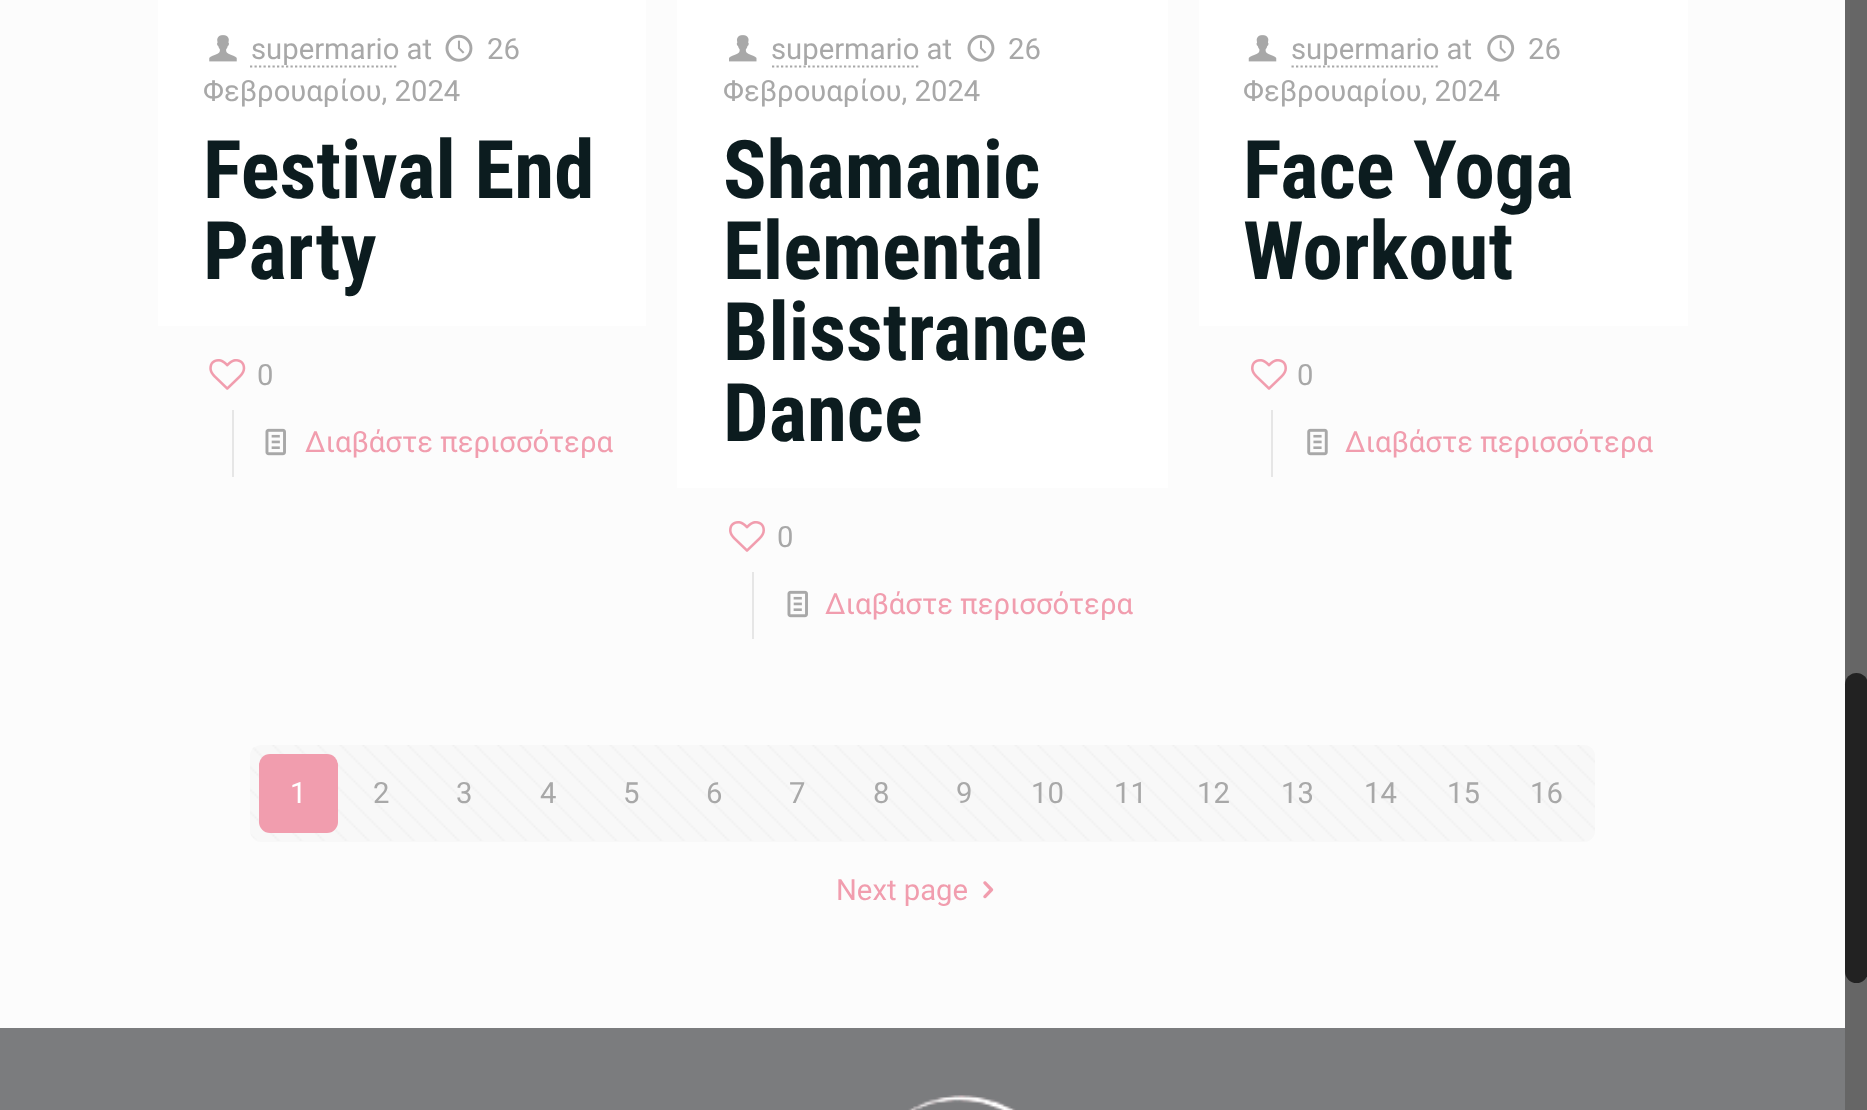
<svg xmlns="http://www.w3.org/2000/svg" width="1867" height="1110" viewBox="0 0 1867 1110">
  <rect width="100%" height="100%" fill="#fcfcfc"/>
  <path d="M158 0h488v326H158z" fill="#fff"/>
  <image x="445" y="34" width="28" height="28" href="img/1.png"/>
  <image x="209" y="35" width="28" height="27" href="img/2.png"/>
  <path d="M250 66.5H398" fill="none" stroke="#a8a8a8" stroke-width="2.2" stroke-dasharray="2.25 2.25"/>
  <image x="209" y="359" width="37" height="31" href="img/3.png"/>
  <path d="M232 410h2v67H232z" fill="#e6e6e6"/>
  <image x="265" y="428" width="21" height="28" href="img/4.png"/>
  <path d="M677 0h491v488H677z" fill="#fff"/>
  <image x="967" y="34" width="28" height="28" href="img/1.png"/>
  <image x="729" y="35" width="28" height="27" href="img/5.png"/>
  <path d="M772 66.5H920" fill="none" stroke="#a8a8a8" stroke-width="2.2" stroke-dasharray="2.25 2.25"/>
  <image x="729" y="521" width="36" height="31" href="img/6.png"/>
  <path d="M752 572h2v67H752z" fill="#e6e6e6"/>
  <image x="787" y="590" width="21" height="28" href="img/4.png"/>
  <path d="M1199 0h489v326H1199z" fill="#fff"/>
  <image x="1487" y="34" width="28" height="28" href="img/7.png"/>
  <image x="1248" y="35" width="29" height="27" href="img/8.png"/>
  <path d="M1291.5 66.5H1440" fill="none" stroke="#a8a8a8" stroke-width="2.2" stroke-dasharray="2.25 2.25"/>
  <image x="1251" y="359" width="36" height="31" href="img/6.png"/>
  <path d="M1271 410h2v67H1271z" fill="#e6e6e6"/>
  <image x="1307" y="428" width="21" height="28" href="img/9.png"/>
  <rect x="250" y="745" width="1345" height="97" rx="11" fill="#f8f8f8"/>
  <image x="250" y="745" width="1345" height="96" href="img/10.png"/>
  <rect x="259" y="754" width="79" height="79" rx="11" fill="#f19dae"/>
  <image x="983" y="881" width="11" height="18" href="img/11.png"/>
  <path d="M0 1028h1845v82H0z" fill="#7b7c7e"/>
  <image x="908" y="1095" width="108" height="15" href="img/12.png"/>
  <path d="M1845 0h22v1110H1845z" fill="#666"/>
  <rect x="1845" y="673" width="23" height="310" rx="11.5" fill="#222"/>
  <g font-family="Roboto" font-size="29.25" fill="#a8a8a8">
    <text x="487" y="59">26</text>
    <text x="203" y="101">Φεβρουαρίου, 2024</text>
    <text x="251" y="59">supermario at</text>
  </g>
  <g font-family="Roboto Condensed" font-size="81" font-weight="bold" fill="#0c1c1f">
    <text x="203" y="198">Festival End</text>
    <text x="203" y="279">Party</text>
  </g>
  <text x="257" y="385" font-family="Roboto" font-size="29.25" fill="#a8a8a8">0</text>
  <text x="305" y="452" font-family="Roboto" font-size="29.25" fill="#f19dae">Διαβάστε περισσότερα</text>
  <g font-family="Roboto" font-size="29.25" fill="#a8a8a8">
    <text x="1008" y="59">26</text>
    <text x="723" y="101">Φεβρουαρίου, 2024</text>
    <text x="771" y="59">supermario at</text>
  </g>
  <g font-family="Roboto Condensed" font-size="81" font-weight="bold" fill="#0c1c1f">
    <text x="723" y="198">Shamanic</text>
    <text x="723" y="279">Elemental</text>
    <text x="723" y="360">Blisstrance</text>
    <text x="723" y="441">Dance</text>
  </g>
  <text x="777" y="547" font-family="Roboto" font-size="29.25" fill="#a8a8a8">0</text>
  <text x="825" y="614" font-family="Roboto" font-size="29.25" fill="#f19dae">Διαβάστε περισσότερα</text>
  <g font-family="Roboto" font-size="29.25" fill="#a8a8a8">
    <text x="1528" y="59">26</text>
    <text x="1243" y="101">Φεβρουαρίου, 2024</text>
    <text x="1291" y="59">supermario at</text>
  </g>
  <g font-family="Roboto Condensed" font-size="81" font-weight="bold" fill="#0c1c1f">
    <text x="1243" y="198">Face Yoga</text>
    <text x="1243" y="279">Workout</text>
  </g>
  <text x="1297" y="385" font-family="Roboto" font-size="29.25" fill="#a8a8a8">0</text>
  <text x="1345" y="452" font-family="Roboto" font-size="29.25" fill="#f19dae">Διαβάστε περισσότερα</text>
  <text x="290" y="803" font-family="Roboto" font-size="29.25" fill="#fff">1</text>
  <g font-family="Roboto" font-size="29.25" fill="#a8a8a8">
    <text x="373" y="803">2</text>
    <text x="456" y="803">3</text>
    <text x="540" y="803">4</text>
    <text x="623" y="803">5</text>
    <text x="706" y="803">6</text>
    <text x="789" y="803">7</text>
    <text x="873" y="803">8</text>
    <text x="956" y="803">9</text>
    <text x="1031" y="803">10</text>
    <text x="1114" y="803">11</text>
    <text x="1197" y="803">12</text>
    <text x="1281" y="803">13</text>
    <text x="1364" y="803">14</text>
    <text x="1447" y="803">15</text>
    <text x="1530" y="803">16</text>
  </g>
  <text x="836" y="900" font-family="Roboto" font-size="29.25" fill="#f19dae">Next page</text>
</svg>
